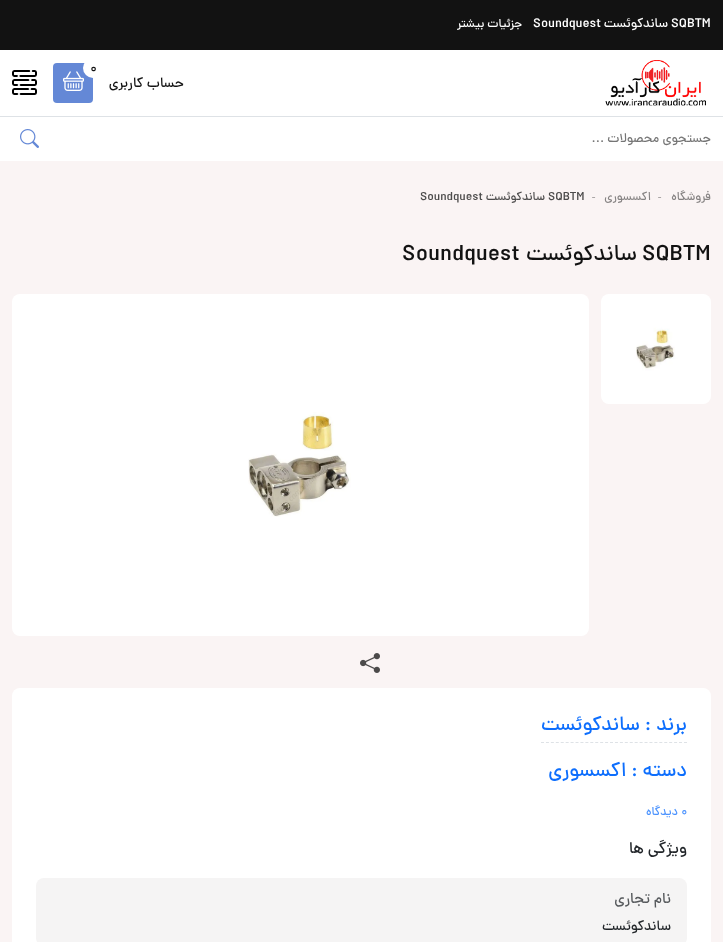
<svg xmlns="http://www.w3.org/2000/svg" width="723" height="942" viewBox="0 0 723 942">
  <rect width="100%" height="100%" fill="#faf4f4"/>
  <path d="M0 0h723v50H0z" fill="#121212"/>
  <path d="M0 50h723v66H0z" fill="#fff"/>
  <image x="605" y="60" width="101" height="46" href="img/1.png"/>
  <rect x="53" y="63" width="40" height="40" rx="4" fill="#6488d6"/>
  <image x="63" y="71" width="21" height="20" href="img/2.png"/>
  <circle cx="93" cy="68" r="10" fill="#fff"/>
  <image x="12" y="70" width="25" height="25" href="img/3.png"/>
  <path d="M0 116h723v1H0z" fill="#dee2e6"/>
  <path d="M0 117h723v44H0z" fill="#fff"/>
  <image x="20" y="129" width="19" height="19" href="img/4.png"/>
  <image x="601" y="294" width="110" height="110" href="img/5.png"/>
  <rect x="12" y="294" width="577" height="342" rx="8" fill="#fff"/>
  <image x="248" y="412" width="103" height="105" href="img/6.png"/>
  <image x="360" y="653" width="20" height="20" href="img/7.png"/>
  <rect x="12" y="688" width="699" height="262" rx="8" fill="#fff"/>
  <path d="M541 742.5H687" fill="none" stroke="#dee2e6" stroke-dasharray="3 1.93"/>
  <rect x="36" y="878" width="651" height="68" rx="8" fill="#f5f4f4"/>
  <text x="671" y="27" font-family="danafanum" font-size="13" font-weight="500" fill="#fff">SQBTM</text>
  <text x="668" y="27" font-family="danafanum" font-size="13" font-weight="500" direction="rtl" fill="#fff">ساندکوئست</text>
  <text x="533" y="27" font-family="danafanum" font-size="13" font-weight="500" fill="#fff">Soundquest</text>
  <text x="522" y="27" font-family="danafanum" font-size="12" font-weight="500" direction="rtl" fill="#fff">جزئیات بیشتر</text>
  <text x="90" y="72" font-family="danafanum" font-size="13" font-weight="500" fill="#121212">0</text>
  <text x="184" y="87" font-family="danafanum" font-size="14" font-weight="500" direction="rtl" fill="#121212">حساب کاربری</text>
  <text x="711" y="142" font-family="danafanum" font-size="13" font-weight="500" direction="rtl" fill="#757575">جستجوی محصولات ...</text>
  <text x="711" y="200" font-family="danafanum" font-size="12" font-weight="500" direction="rtl" fill="#868383">فروشگاه</text>
  <text x="658" y="198" font-family="danafanum" font-size="8" font-weight="500" fill="#868383">_</text>
  <text x="651" y="200" font-family="danafanum" font-size="12" font-weight="500" direction="rtl" fill="#868383">اکسسوری</text>
  <text x="592" y="198" font-family="danafanum" font-size="8" font-weight="500" fill="#868383">_</text>
  <text x="548" y="200" font-family="danafanum" font-size="12" font-weight="500" fill="#4c4b4b">SQBTM</text>
  <text x="545" y="200" font-family="danafanum" font-size="12" font-weight="500" direction="rtl" fill="#4c4b4b">ساندکوئست</text>
  <text x="420" y="200" font-family="danafanum" font-size="12" font-weight="500" fill="#4c4b4b">Soundquest</text>
  <text x="642" y="260" font-family="danafanum" font-size="22.5" font-weight="500" fill="#121212">SQBTM</text>
  <text x="637" y="260" font-family="danafanum" font-size="22.5" font-weight="500" direction="rtl" fill="#121212">ساندکوئست</text>
  <text x="402" y="260" font-family="danafanum" font-size="22.5" font-weight="500" fill="#121212">Soundquest</text>
  <g font-family="danafanum" font-size="20" font-weight="500" direction="rtl" fill="#0d6efd">
    <text x="687" y="730">برند : ساندکوئست</text>
    <text x="687" y="776">دسته : اکسسوری</text>
  </g>
  <text x="681" y="815" font-family="danafanum" font-size="12" font-weight="500" fill="#4a92fe">0</text>
  <text x="678" y="815" font-family="danafanum" font-size="12" font-weight="500" direction="rtl" fill="#4a92fe">دیدگاه</text>
  <text x="687" y="853" font-family="danafanum" font-size="16" font-weight="500" direction="rtl" fill="#212529">ویژگی ها</text>
  <text x="671" y="903" font-family="danafanum" font-size="15" font-weight="500" direction="rtl" fill="#56595c">نام تجاری</text>
  <text x="671" y="930" font-family="danafanum" font-size="14" font-weight="500" direction="rtl" fill="#212529">ساندکوئست</text>
</svg>
